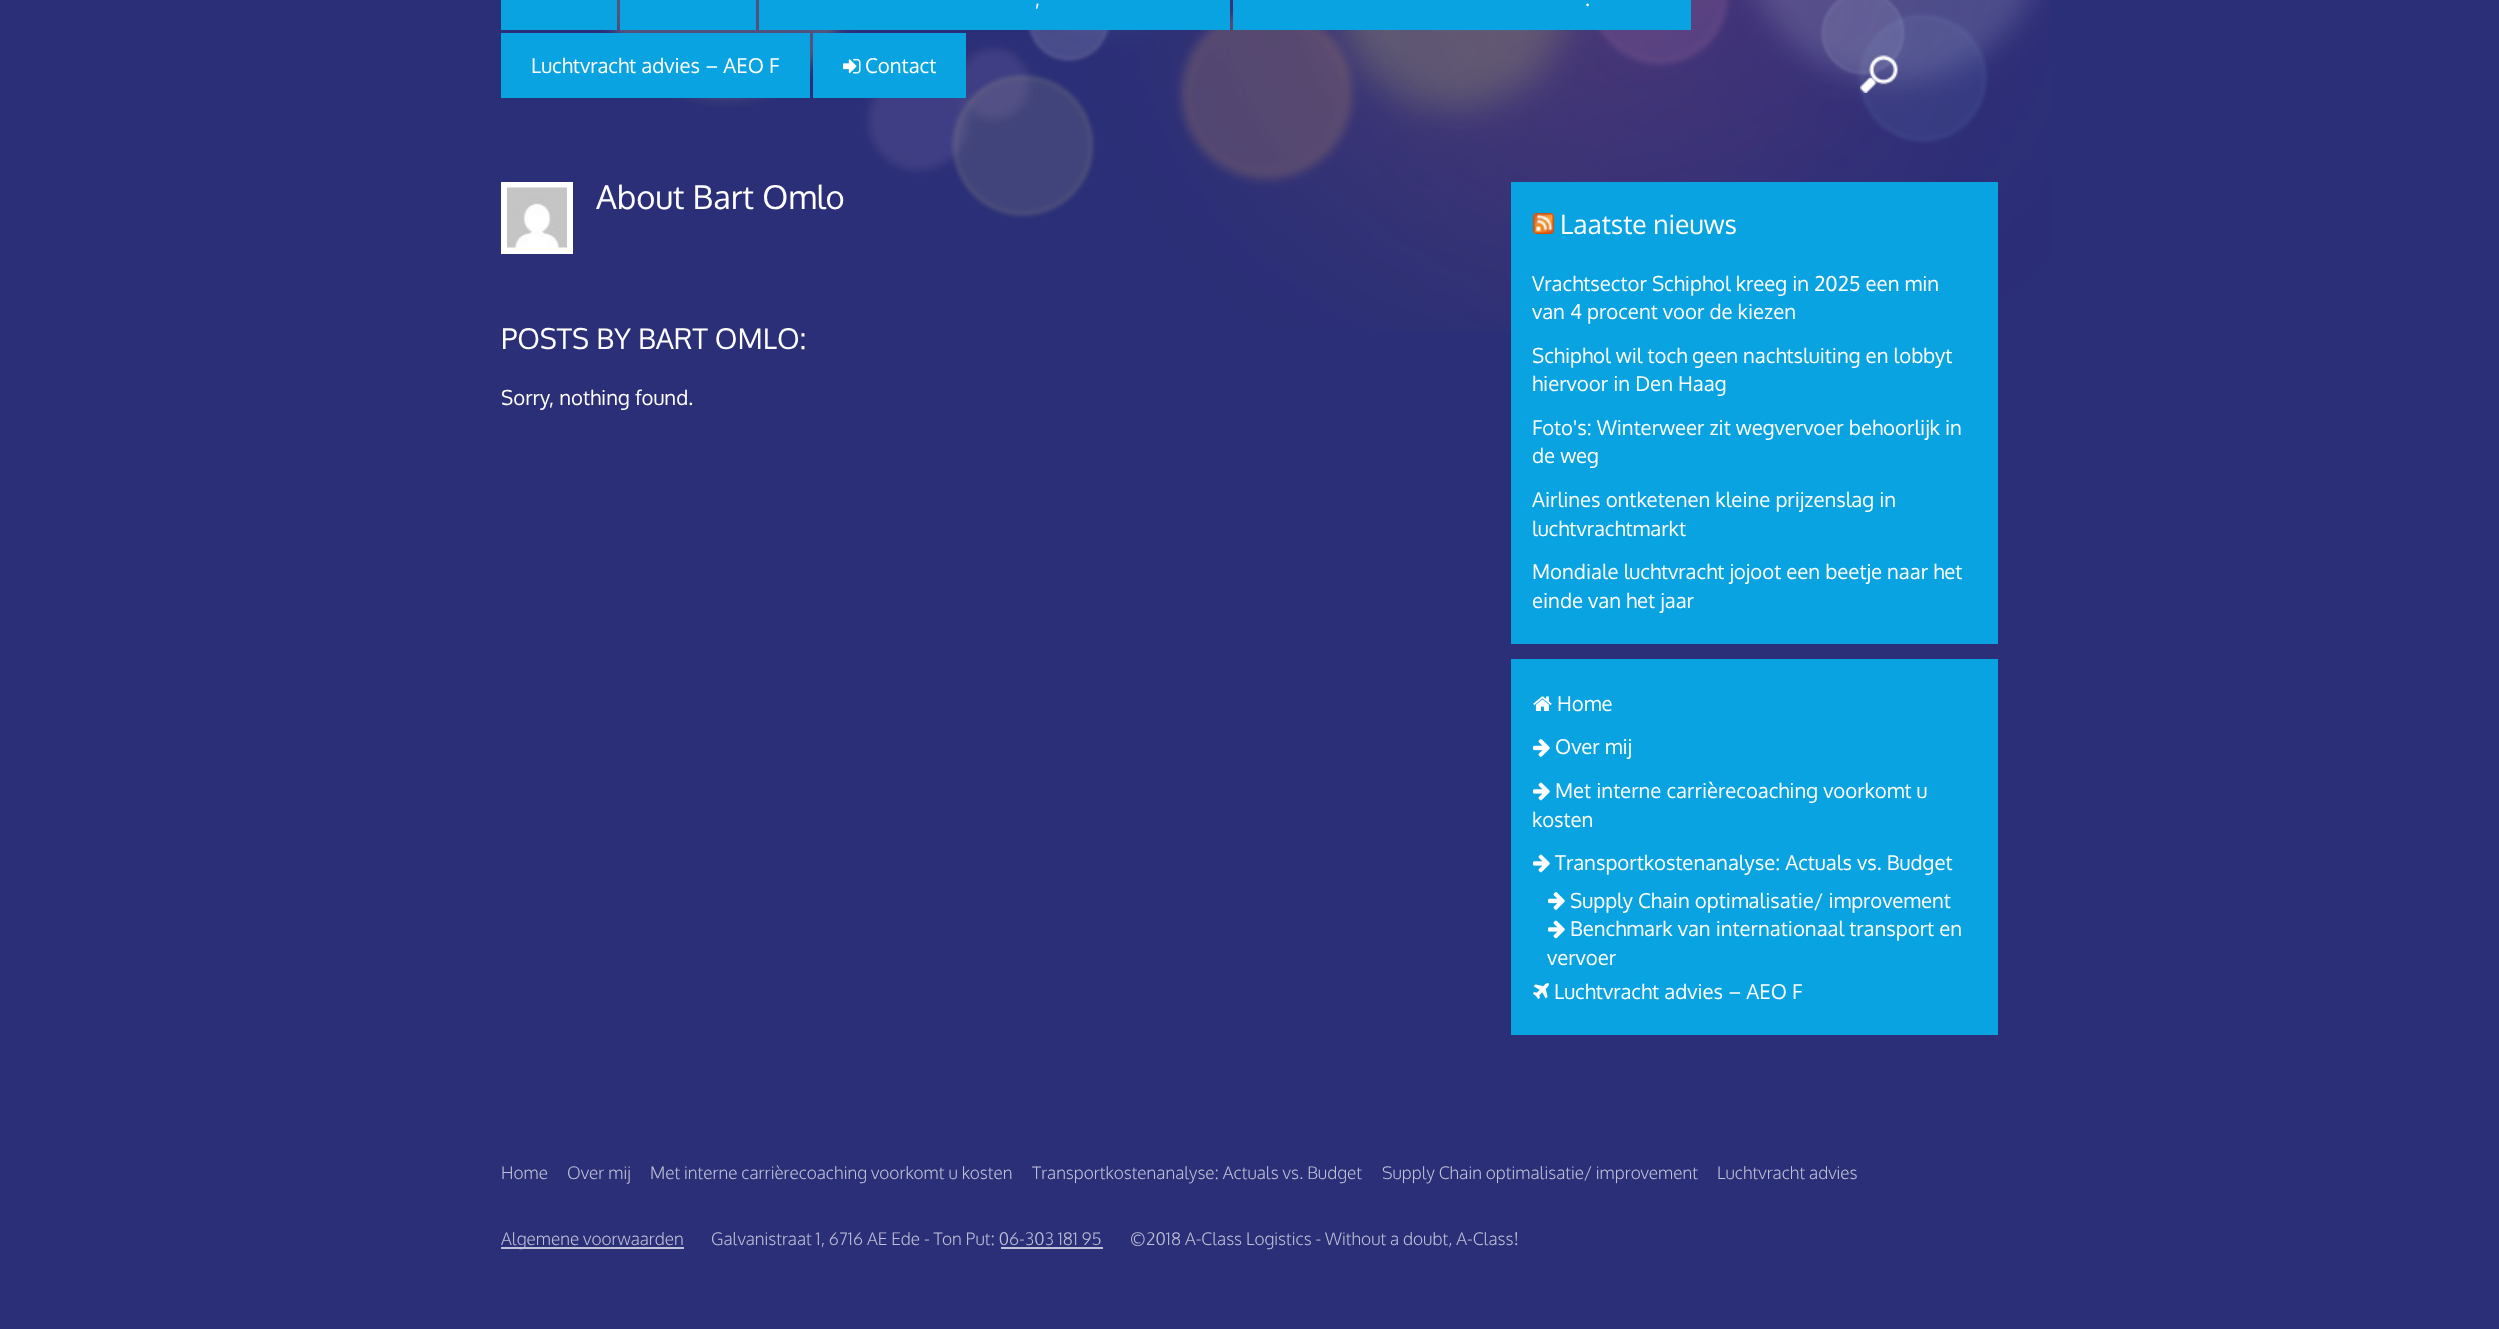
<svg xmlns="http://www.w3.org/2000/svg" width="2499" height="1329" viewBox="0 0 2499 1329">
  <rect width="100%" height="100%" fill="#2b2f77"/>
  <image x="606" y="0" width="1445" height="331" href="img/1.png"/>
  <path d="M501 0h116v30H501z" fill="#09a3e2"/>
  <path d="M620 0h136v30H620z" fill="#09a3e2"/>
  <path d="M759 0h471v30H759z" fill="#09a3e2"/>
  <path d="M1233 0h458v30H1233z" fill="#09a3e2"/>
  <path d="M501 33h309v65H501z" fill="#09a3e2"/>
  <path d="M813 33h153v65H813z" fill="#09a3e2"/>
  <image x="843" y="58" width="18" height="16" href="img/2.png"/>
  <image x="1860" y="55" width="38" height="38" href="img/3.png"/>
  <path d="M501 182h72v72H501z" fill="#fff"/>
  <image x="507" y="187" width="60" height="61" href="img/4.png"/>
  <path d="M1511 182h487v462H1511z" fill="#09a3e2"/>
  <image x="1533" y="213" width="21" height="21" href="img/5.png"/>
  <path d="M1511 659h487v376H1511z" fill="#09a3e2"/>
  <image x="1533" y="696" width="19" height="15" href="img/6.png"/>
  <image x="1533" y="739" width="17" height="18" href="img/7.png"/>
  <image x="1533" y="782" width="17" height="19" href="img/8.png"/>
  <image x="1533" y="854" width="17" height="19" href="img/8.png"/>
  <image x="1548" y="892" width="17" height="18" href="img/7.png"/>
  <image x="1548" y="920" width="17" height="19" href="img/8.png"/>
  <image x="1533" y="983" width="16" height="16" href="img/9.png"/>
  <path d="M501 1247h183v2H501z" fill="#bfc1d6"/>
  <path d="M1001 1247h102v2H1001z" fill="#bfc1d6"/>
  <g font-family="Oxygen" font-size="20.4" fill="#fff">
    <text x="1035" y="6">,</text>
    <text x="1585" y="6">.</text>
    <text x="531" y="73">Luchtvracht advies – AEO F</text>
    <text x="865" y="73">Contact</text>
  </g>
  <text x="596" y="209" font-family="Oxygen" font-size="32.75" fill="#fff">About Bart Omlo</text>
  <text x="501" y="349" font-family="Oxygen" font-size="28.5" fill="#fff">POSTS BY BART OMLO:</text>
  <text x="501" y="405" font-family="Oxygen" font-size="20.4" fill="#fff">Sorry, nothing found.</text>
  <text x="1560" y="234" font-family="Oxygen" font-size="26.5" fill="#fff">Laatste nieuws</text>
  <g font-family="Oxygen" font-size="20.4" fill="#fff">
    <text x="1532" y="291">Vrachtsector Schiphol kreeg in 2025 een min</text>
    <text x="1532" y="319">van 4 procent voor de kiezen</text>
    <text x="1532" y="363">Schiphol wil toch geen nachtsluiting en lobbyt</text>
    <text x="1532" y="391">hiervoor in Den Haag</text>
    <text x="1532" y="435">Foto's: Winterweer zit wegvervoer behoorlijk in</text>
    <text x="1532" y="463">de weg</text>
    <text x="1532" y="507">Airlines ontketenen kleine prijzenslag in</text>
    <text x="1532" y="536">luchtvrachtmarkt</text>
    <text x="1532" y="579">Mondiale luchtvracht jojoot een beetje naar het</text>
    <text x="1532" y="608">einde van het jaar</text>
    <text x="1557" y="711">Home</text>
    <text x="1555" y="754">Over mij</text>
    <text x="1555" y="798">Met interne carrièrecoaching voorkomt u</text>
    <text x="1532" y="827">kosten</text>
    <text x="1555" y="870">Transportkostenanalyse: Actuals vs. Budget</text>
    <text x="1570" y="908">Supply Chain optimalisatie/ improvement</text>
    <text x="1570" y="936">Benchmark van internationaal transport en</text>
    <text x="1547" y="965">vervoer</text>
    <text x="1554" y="999">Luchtvracht advies – AEO F</text>
  </g>
  <g font-family="Oxygen" font-size="17.3" font-weight="300" fill="#bfc1d6">
    <text x="501" y="1179">Home</text>
    <text x="567" y="1179">Over mij</text>
    <text x="650" y="1179">Met interne carrièrecoaching voorkomt u kosten</text>
    <text x="1032" y="1179">Transportkostenanalyse: Actuals vs. Budget</text>
    <text x="1382" y="1179">Supply Chain optimalisatie/ improvement</text>
    <text x="1717" y="1179">Luchtvracht advies</text>
    <text x="501" y="1245">Algemene voorwaarden</text>
    <text x="711" y="1245">Galvanistraat 1, 6716 AE Ede - Ton Put: 06-303 181 95</text>
    <text x="1130" y="1245">©2018 A-Class Logistics - Without a doubt, A-Class!</text>
  </g>
</svg>
